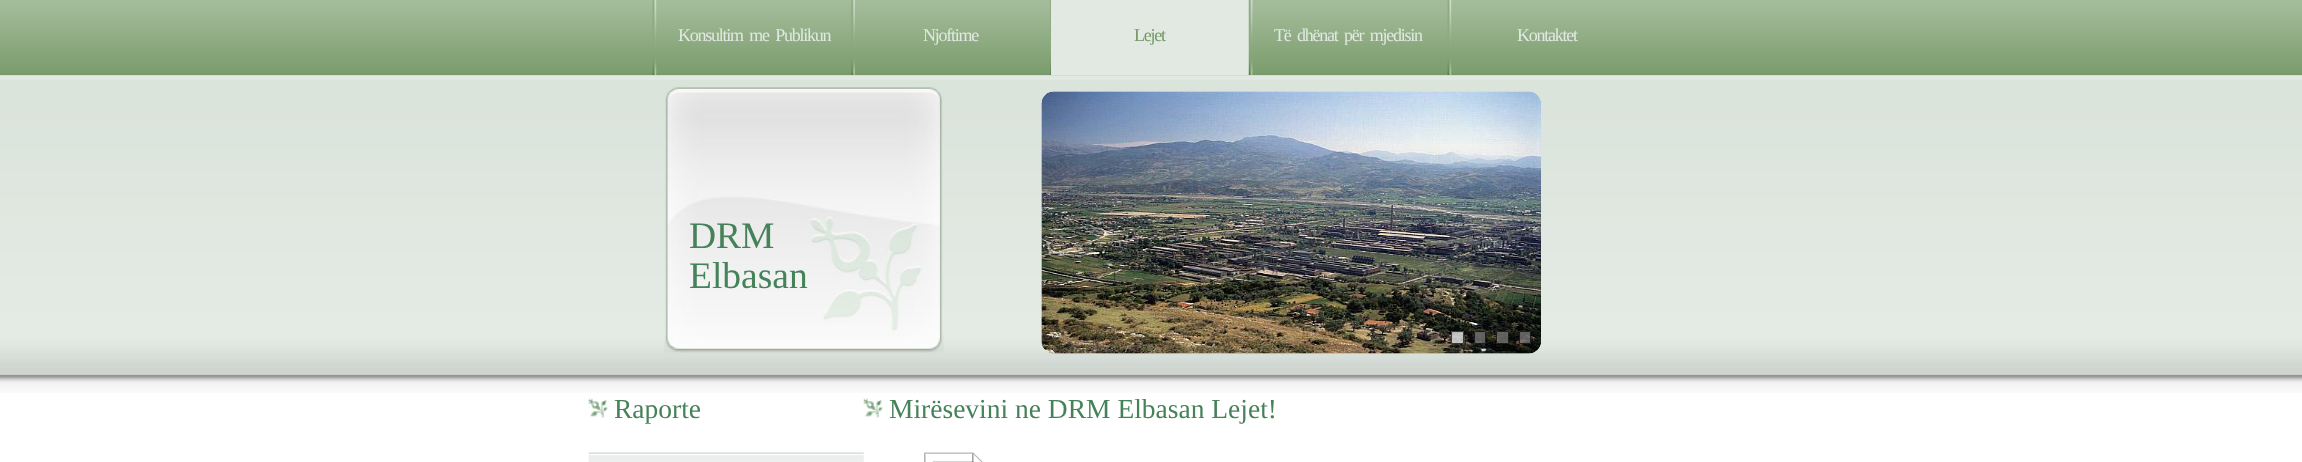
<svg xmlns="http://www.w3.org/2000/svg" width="2302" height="462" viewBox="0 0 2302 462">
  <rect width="100%" height="100%" fill="#fff"/>
  <image x="0" y="0" width="2302" height="393" href="img/1.png"/>
  <image x="652" y="0" width="5" height="75" href="img/2.png"/>
  <image x="851" y="0" width="4" height="75" href="img/3.png"/>
  <image x="1050" y="0" width="1" height="75" href="img/4.png"/>
  <path d="M1051 0h198v75H1051z" fill="#e1e9e2"/>
  <image x="1248" y="0" width="5" height="75" href="img/5.png"/>
  <image x="1447" y="0" width="5" height="75" href="img/2.png"/>
  <image x="664" y="85" width="280" height="268" href="img/6.png"/>
  <image x="1041" y="91" width="500" height="263" href="img/7.png"/>
  <path d="M1451 331h13v13H1451z" fill="#ffffffb3"/>
  <path d="M1451.5 331.5h12v12H1451.5z" fill="none" stroke="#000000b3"/>
  <path d="M1474 331h12v13H1474z" fill="#808080b3"/>
  <path d="M1474.5 331.5h11v12H1474.5z" fill="none" stroke="#000000b3"/>
  <path d="M1496 331h13v13H1496z" fill="#808080b3"/>
  <path d="M1496.5 331.5h12v12H1496.5z" fill="none" stroke="#000000b3"/>
  <path d="M1519 331h12v13H1519z" fill="#808080b3"/>
  <path d="M1519.5 331.5h11v12H1519.5z" fill="none" stroke="#000000b3"/>
  <image x="588" y="398" width="20" height="20" href="img/8.png"/>
  <image x="588" y="452" width="276" height="10" href="img/9.png"/>
  <image x="863" y="398" width="20" height="20" href="img/10.png"/>
  <image x="924" y="452" width="59" height="10" href="img/11.png"/>
  <g font-family="Liberation Serif" font-size="18" letter-spacing="-1.25" fill="#e1e9e2">
    <text x="678" y="41" xml:space="preserve">Konsultim  me  Publikun</text>
    <text x="923" y="41">Njoftime</text>
  </g>
  <text x="1134" y="41" font-family="Liberation Serif" font-size="18" letter-spacing="-1.25" fill="#749865">Lejet</text>
  <g font-family="Liberation Serif" font-size="18" letter-spacing="-1.25" fill="#e1e9e2">
    <text x="1274" y="41" xml:space="preserve">Të  dhënat  për  mjedisin</text>
    <text x="1517" y="41">Kontaktet</text>
  </g>
  <g font-family="Liberation Serif" font-size="37.5" fill="#468259">
    <text x="689" y="248">DRM</text>
    <text x="689" y="288">Elbasan</text>
  </g>
  <g font-family="Liberation Serif" font-size="27.5" fill="#468259">
    <text x="614" y="418">Raporte</text>
    <text x="889" y="418">Mirësevini ne DRM Elbasan Lejet!</text>
  </g>
</svg>
